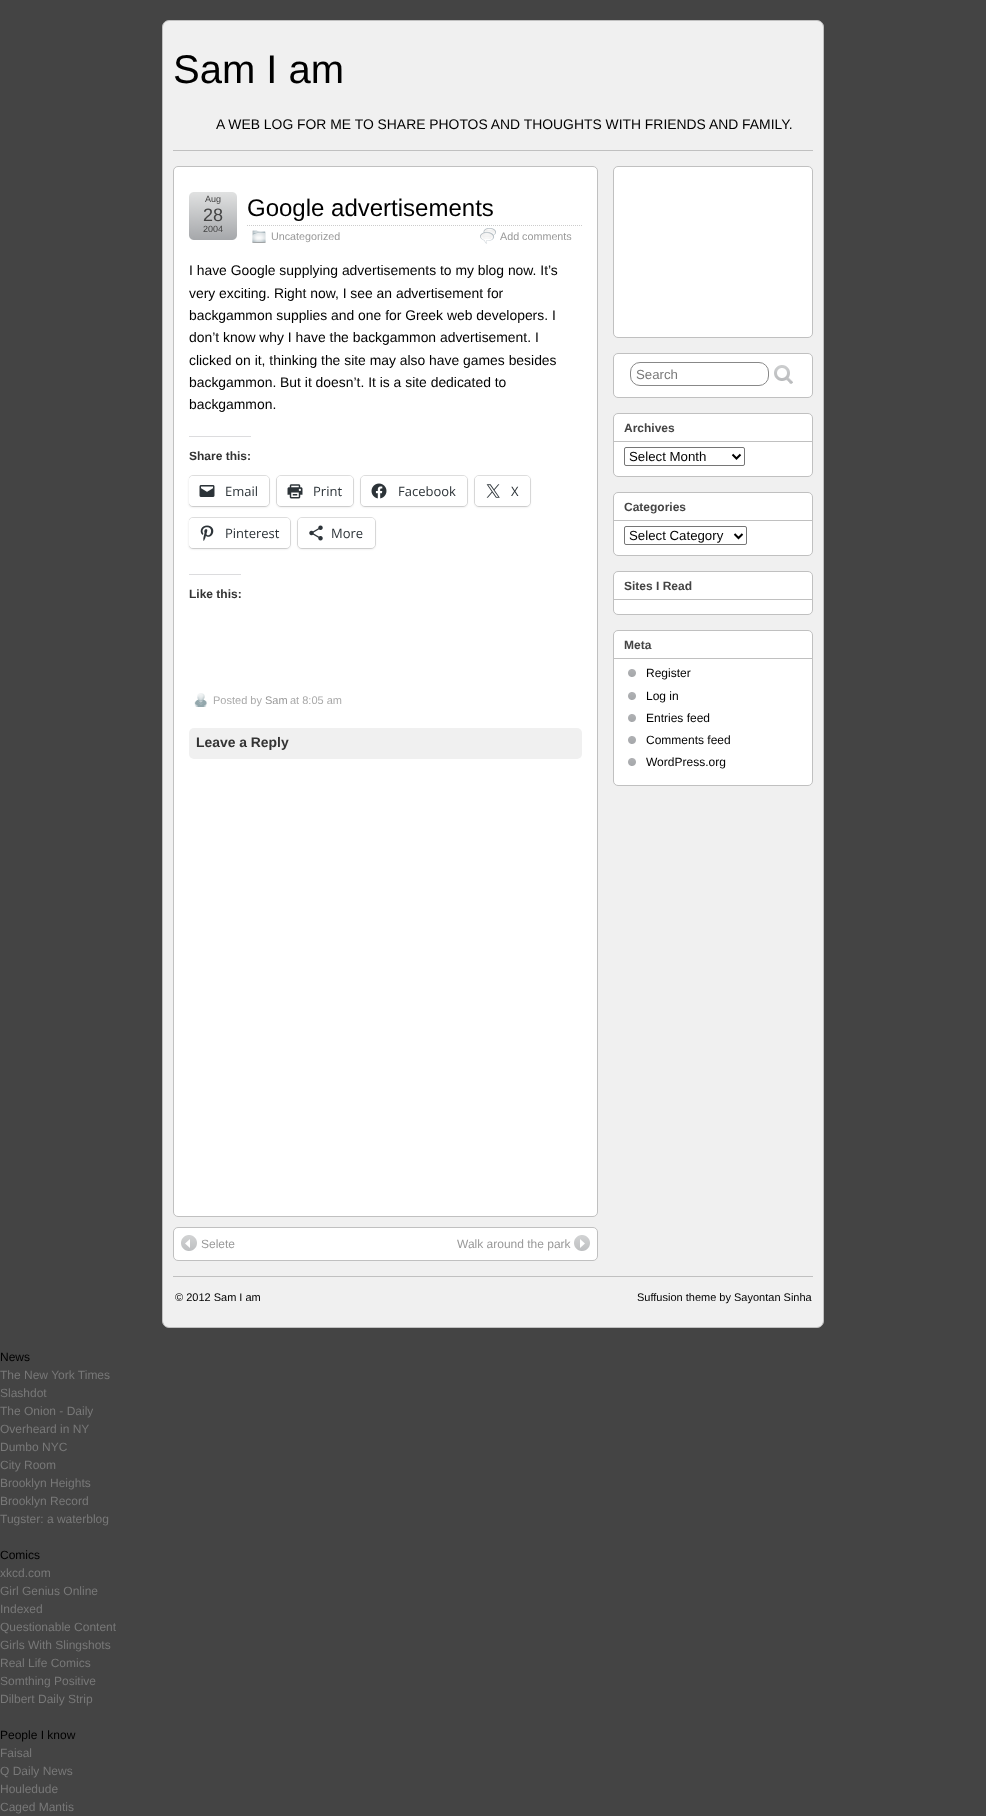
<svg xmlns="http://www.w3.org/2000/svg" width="986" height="1816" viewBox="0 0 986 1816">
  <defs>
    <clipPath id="clip1"><path d="M189 244h393v429H189z"/></clipPath>
  </defs>
  <rect width="100%" height="100%" fill="#444"/>
  <rect x="162.5" y="20.5" width="661" height="1307" rx="6.5" fill="#f0f0f0" stroke="#c0c0c0"/>
  <path d="M173 150h640v1H173z" fill="#c0c0c0"/>
  <rect x="173.5" y="166.5" width="424" height="1050" rx="4.5" fill="#fff" stroke="#c0c0c0"/>
  <image x="189" y="192" width="48" height="48" href="img/1.png"/>
  <path d="M247 225.5H582" fill="none" stroke="#ccc" stroke-dasharray="1 1"/>
  <image x="252" y="230" width="14" height="13" href="img/2.png"/>
  <image x="480" y="228" width="16" height="16" href="img/3.png"/>
  <path d="M189 436h62v1H189z" fill="#dcdcde"/>
  <g clip-path="url(#clip1)">
    <rect x="188.5" y="475.5" width="81" height="31" rx="4.5" fill="none" stroke="#e0e0e0"/>
  </g>
  <rect x="189" y="477" width="80" height="30" rx="4" fill="#0000001f" filter="blur(1px)"/>
  <rect x="189" y="476" width="80" height="30" rx="4" fill="#fff"/>
  <image x="199" y="485" width="16" height="12" href="img/4.png"/>
  <rect x="276.5" y="475.5" width="77" height="31" rx="4.5" fill="none" stroke="#e0e0e0"/>
  <rect x="277" y="477" width="76" height="30" rx="4" fill="#0000001f" filter="blur(1px)"/>
  <rect x="277" y="476" width="76" height="30" rx="4" fill="#fff"/>
  <image x="287" y="484" width="16" height="15" href="img/5.png"/>
  <rect x="360.5" y="475.5" width="107" height="31" rx="4.5" fill="none" stroke="#e0e0e0"/>
  <rect x="361" y="477" width="106" height="30" rx="4" fill="#0000001f" filter="blur(1px)"/>
  <rect x="361" y="476" width="106" height="30" rx="4" fill="#fff"/>
  <image x="371" y="483" width="16" height="16" href="img/6.png"/>
  <rect x="474.5" y="475.5" width="56" height="31" rx="4.5" fill="none" stroke="#e0e0e0"/>
  <rect x="475" y="477" width="55" height="30" rx="4" fill="#0000001f" filter="blur(1px)"/>
  <rect x="475" y="476" width="55" height="30" rx="4" fill="#fff"/>
  <image x="486" y="484" width="14" height="14" href="img/7.png"/>
  <g clip-path="url(#clip1)">
    <rect x="188.5" y="517.5" width="102" height="31" rx="4.5" fill="none" stroke="#e0e0e0"/>
  </g>
  <rect x="189" y="519" width="101" height="30" rx="4" fill="#0000001f" filter="blur(1px)"/>
  <rect x="189" y="518" width="101" height="30" rx="4" fill="#fff"/>
  <image x="200" y="525" width="14" height="16" href="img/8.png"/>
  <rect x="297.5" y="517.5" width="78" height="31" rx="4.5" fill="none" stroke="#e0e0e0"/>
  <rect x="298" y="519" width="77" height="30" rx="4" fill="#0000001f" filter="blur(1px)"/>
  <rect x="298" y="518" width="77" height="30" rx="4" fill="#fff"/>
  <image x="309" y="525" width="14" height="16" href="img/9.png"/>
  <path d="M189 574h52v1H189z" fill="#dcdcde"/>
  <image x="194" y="693" width="13" height="14" href="img/10.png"/>
  <rect x="189" y="728" width="393" height="31" rx="5" fill="#f0f0f0"/>
  <rect x="173.5" y="1227.5" width="424" height="33" rx="4.5" fill="#fff" stroke="#c0c0c0"/>
  <image x="181" y="1235" width="16" height="16" href="img/11.png"/>
  <image x="574" y="1235" width="16" height="16" href="img/12.png"/>
  <rect x="613.5" y="166.5" width="199" height="171" rx="4.5" fill="#fff" stroke="#c0c0c0"/>
  <rect x="613.5" y="353.5" width="199" height="44" rx="4.5" fill="#fff" stroke="#c0c0c0"/>
  <rect x="630.5" y="362.5" width="138" height="23" rx="9.5" fill="none" stroke="#888"/>
  <image x="774" y="365" width="19" height="19" href="img/13.png"/>
  <rect x="613.5" y="413.5" width="199" height="63" rx="4.5" fill="#fff" stroke="#c0c0c0"/>
  <path d="M614 441h198v1H614z" fill="#c0c0c0"/>
  <rect x="624.5" y="447.5" width="120" height="18" rx="1.5" fill="none" stroke="#767676"/>
  <path d="M732.5 454.5L736.5 458.5L740.5 454.5" fill="none" stroke="#000" stroke-width="2"/>
  <rect x="613.5" y="492.5" width="199" height="63" rx="4.5" fill="#fff" stroke="#c0c0c0"/>
  <path d="M614 520h198v1H614z" fill="#c0c0c0"/>
  <rect x="624.5" y="526.5" width="122" height="18" rx="1.5" fill="none" stroke="#767676"/>
  <path d="M734.5 534L738.5 538L742.5 534" fill="none" stroke="#000" stroke-width="2"/>
  <rect x="613.5" y="571.5" width="199" height="43" rx="4.5" fill="#fff" stroke="#c0c0c0"/>
  <path d="M614 599h198v1H614z" fill="#c0c0c0"/>
  <rect x="613.5" y="630.5" width="199" height="155" rx="4.5" fill="#fff" stroke="#c0c0c0"/>
  <path d="M614 658h198v1H614z" fill="#c0c0c0"/>
  <image x="628" y="669" width="8" height="8" href="img/14.png"/>
  <image x="628" y="692" width="8" height="8" href="img/14.png"/>
  <image x="628" y="714" width="8" height="8" href="img/14.png"/>
  <image x="628" y="736" width="8" height="8" href="img/14.png"/>
  <image x="628" y="758" width="8" height="8" href="img/14.png"/>
  <path d="M173 1276h640v1H173z" fill="#c0c0c0"/>
  <text x="173" y="83" font-family="Liberation Sans" font-size="40" fill="#000">Sam I am</text>
  <text x="216" y="129" font-family="Liberation Sans" font-size="13.9" fill="#000">A WEB LOG FOR ME TO SHARE PHOTOS AND THOUGHTS WITH FRIENDS AND FAMILY.</text>
  <text x="205" y="202" font-family="Liberation Sans" font-size="9" fill="#444">Aug</text>
  <text x="203" y="221" font-family="Liberation Sans" font-size="18" fill="#444">28</text>
  <text x="203" y="232" font-family="Liberation Sans" font-size="9" fill="#444">2004</text>
  <text x="247" y="216" font-family="Liberation Sans" font-size="24" fill="#000">Google advertisements</text>
  <g font-family="Liberation Sans" font-size="10.75" fill="#999">
    <text x="271" y="240">Uncategorized</text>
    <text x="500" y="240">Add comments</text>
  </g>
  <g font-family="Liberation Sans" font-size="13.9" fill="#000">
    <text x="189" y="275">I have Google supplying advertisements to my blog now. It’s</text>
    <text x="189" y="298">very exciting. Right now, I see an advertisement for</text>
    <text x="189" y="320">backgammon supplies and one for Greek web developers. I</text>
    <text x="189" y="342">don’t know why I have the backgammon advertisement. I</text>
    <text x="189" y="365">clicked on it, thinking the site may also have games besides</text>
    <text x="189" y="387">backgammon. But it doesn’t. It is a site dedicated to</text>
    <text x="189" y="409">backgammon.</text>
  </g>
  <text x="189" y="460" font-family="Liberation Sans" font-size="12" font-weight="bold" fill="#333">Share this:</text>
  <g font-family="Open Sans" font-size="13" fill="#2c3338">
    <text x="225" y="496">Email</text>
    <text x="313" y="496">Print</text>
    <text x="398" y="496">Facebook</text>
    <text x="511" y="496">X</text>
    <text x="225" y="538">Pinterest</text>
    <text x="331" y="538">More</text>
  </g>
  <text x="189" y="598" font-family="Liberation Sans" font-size="12" font-weight="bold" fill="#333">Like this:</text>
  <text x="213" y="704" font-family="Liberation Sans" font-size="11" fill="#aaa">Posted by</text>
  <text x="265" y="704" font-family="Liberation Sans" font-size="11" fill="#999">Sam</text>
  <text x="290" y="704" font-family="Liberation Sans" font-size="11" fill="#aaa">at 8:05 am</text>
  <text x="196" y="747" font-family="Liberation Sans" font-size="13.9" font-weight="bold" fill="#333">Leave a Reply</text>
  <g font-family="Liberation Sans" font-size="12" fill="#999">
    <text x="201" y="1248">Selete</text>
    <text x="457" y="1248">Walk around the park</text>
  </g>
  <text x="636" y="379" font-family="Liberation Sans" font-size="13.25" fill="#787878">Search</text>
  <text x="624" y="432" font-family="Liberation Sans" font-size="12" font-weight="bold" fill="#444">Archives</text>
  <text x="629" y="461" font-family="Liberation Sans" font-size="13.25" fill="#000">Select Month</text>
  <text x="624" y="511" font-family="Liberation Sans" font-size="12" font-weight="bold" fill="#444">Categories</text>
  <text x="629" y="540" font-family="Liberation Sans" font-size="13.25" fill="#000">Select Category</text>
  <g font-family="Liberation Sans" font-size="12" font-weight="bold" fill="#444">
    <text x="624" y="590">Sites I Read</text>
    <text x="624" y="649">Meta</text>
  </g>
  <g font-family="Liberation Sans" font-size="12" fill="#000">
    <text x="646" y="677">Register</text>
    <text x="646" y="700">Log in</text>
    <text x="646" y="722">Entries feed</text>
    <text x="646" y="744">Comments feed</text>
    <text x="646" y="766">WordPress.org</text>
  </g>
  <g font-family="Liberation Sans" font-size="11" fill="#000">
    <text x="175" y="1301">© 2012 Sam I am</text>
    <text x="637" y="1301">Suffusion theme by Sayontan Sinha</text>
  </g>
  <text x="0" y="1361" font-family="Liberation Sans" font-size="12" fill="#000">News</text>
  <g font-family="Liberation Sans" font-size="12" fill="#787878">
    <text x="0" y="1379">The New York Times</text>
    <text x="0" y="1397">Slashdot</text>
    <text x="0" y="1415">The Onion - Daily</text>
    <text x="0" y="1433">Overheard in NY</text>
    <text x="0" y="1451">Dumbo NYC</text>
    <text x="0" y="1469">City Room</text>
    <text x="0" y="1487">Brooklyn Heights</text>
    <text x="0" y="1505">Brooklyn Record</text>
    <text x="0" y="1523">Tugster: a waterblog</text>
  </g>
  <text x="0" y="1559" font-family="Liberation Sans" font-size="12" fill="#000">Comics</text>
  <g font-family="Liberation Sans" font-size="12" fill="#787878">
    <text x="0" y="1577">xkcd.com</text>
    <text x="0" y="1595">Girl Genius Online</text>
    <text x="0" y="1613">Indexed</text>
    <text x="0" y="1631">Questionable Content</text>
    <text x="0" y="1649">Girls With Slingshots</text>
    <text x="0" y="1667">Real Life Comics</text>
    <text x="0" y="1685">Somthing Positive</text>
    <text x="0" y="1703">Dilbert Daily Strip</text>
  </g>
  <text x="0" y="1739" font-family="Liberation Sans" font-size="12" fill="#000">People I know</text>
  <g font-family="Liberation Sans" font-size="12" fill="#787878">
    <text x="0" y="1757">Faisal</text>
    <text x="0" y="1775">Q Daily News</text>
    <text x="0" y="1793">Houledude</text>
    <text x="0" y="1811">Caged Mantis</text>
  </g>
</svg>
